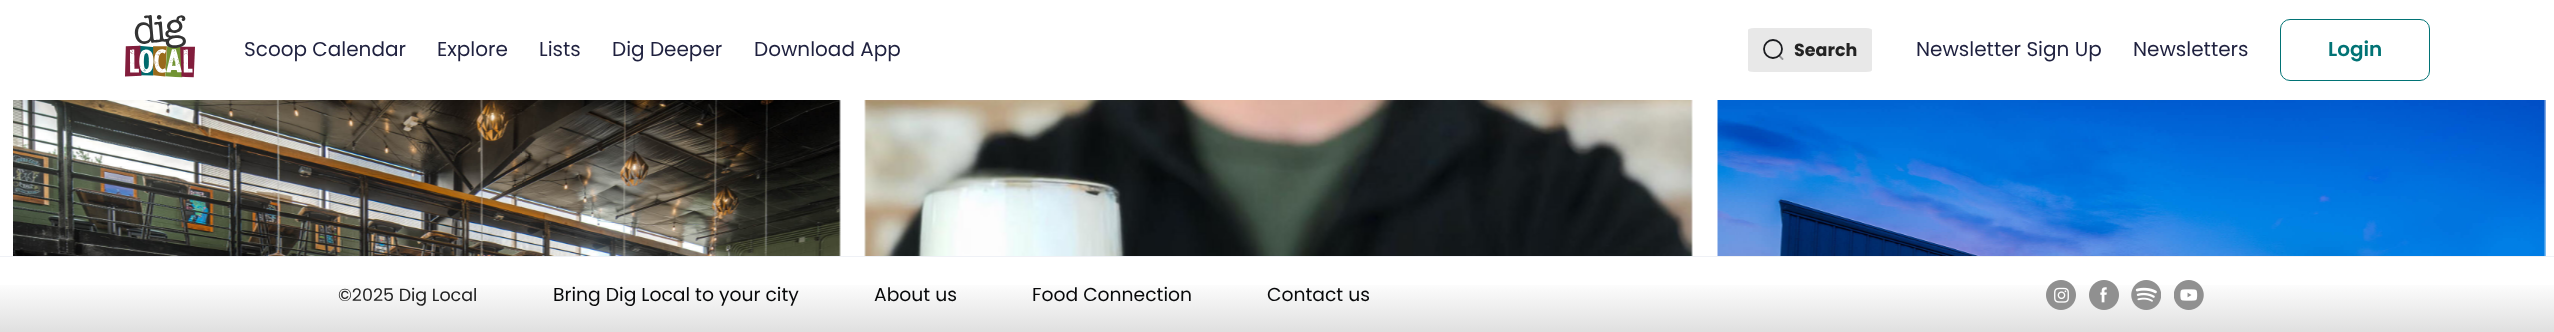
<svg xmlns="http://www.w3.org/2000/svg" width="2554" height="332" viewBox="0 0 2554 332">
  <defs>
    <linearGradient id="g1" gradientUnits="userSpaceOnUse" x1="1278" y1="257" x2="1278" y2="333"><stop offset="0.31" stop-color="#fff"/><stop offset="1" stop-color="#dfdfdf"/></linearGradient>
  </defs>
  <rect width="100%" height="100%" fill="#fff"/>
  <image x="125" y="15" width="70" height="63" href="img/1.png"/>
  <path d="M1754 28H1866C1870 28 1872 29 1872 30V70C1872 71 1870 72 1866 72H1754C1750 72 1748 71 1748 70V30C1748 29 1750 28 1754 28Z" fill="#e8e8e8"/>
  <circle cx="1773" cy="49" r="9" fill="none" stroke="#1b1c20" stroke-width="1.8"/>
  <path d="M1779 55.5L1782.5 59" fill="none" stroke="#1b1c2066" stroke-width="1.8" stroke-linecap="round" stroke-linejoin="round"/>
  <rect x="2280.5" y="19.5" width="149" height="61" rx="9.5" fill="none" stroke="#017375"/>
  <image x="13" y="100" width="828" height="156" href="img/2.png"/>
  <image x="864" y="100" width="829" height="156" href="img/3.png"/>
  <image x="1717" y="100" width="829" height="156" href="img/4.png"/>
  <path d="M0 256h2554v1H0z" fill="#eff1f6"/>
  <path d="M0 285h2554v47H0z" fill="url(#g1)"/>
  <image x="2046" y="280" width="30" height="30" href="img/5.png"/>
  <image x="2089" y="280" width="30" height="30" href="img/6.png"/>
  <image x="2131" y="280" width="30" height="30" href="img/7.png"/>
  <image x="2174" y="280" width="30" height="30" href="img/8.png"/>
  <g font-family="Poppins" font-size="20" fill="#1f213f">
    <text x="244" y="56">Scoop Calendar</text>
    <text x="437" y="56">Explore</text>
    <text x="539" y="56">Lists</text>
    <text x="612" y="56">Dig Deeper</text>
    <text x="754" y="56">Download App</text>
  </g>
  <text x="1794" y="56" font-family="Poppins" font-size="17.5" font-weight="bold" fill="#232323">Search</text>
  <g font-family="Poppins" font-size="20" fill="#1f213f">
    <text x="1916" y="56">Newsletter Sign Up</text>
    <text x="2133" y="56">Newsletters</text>
  </g>
  <text x="2328" y="56" font-family="Poppins" font-size="20" font-weight="600" fill="#017375">Login</text>
  <text x="338" y="301" font-family="Poppins" font-size="17.5" fill="#232323">©2025 Dig Local</text>
  <g font-family="Poppins" font-size="18.75" fill="#08090a">
    <text x="553" y="301">Bring Dig Local to your city</text>
    <text x="874" y="301">About us</text>
    <text x="1032" y="301">Food Connection</text>
    <text x="1267" y="301">Contact us</text>
  </g>
</svg>
